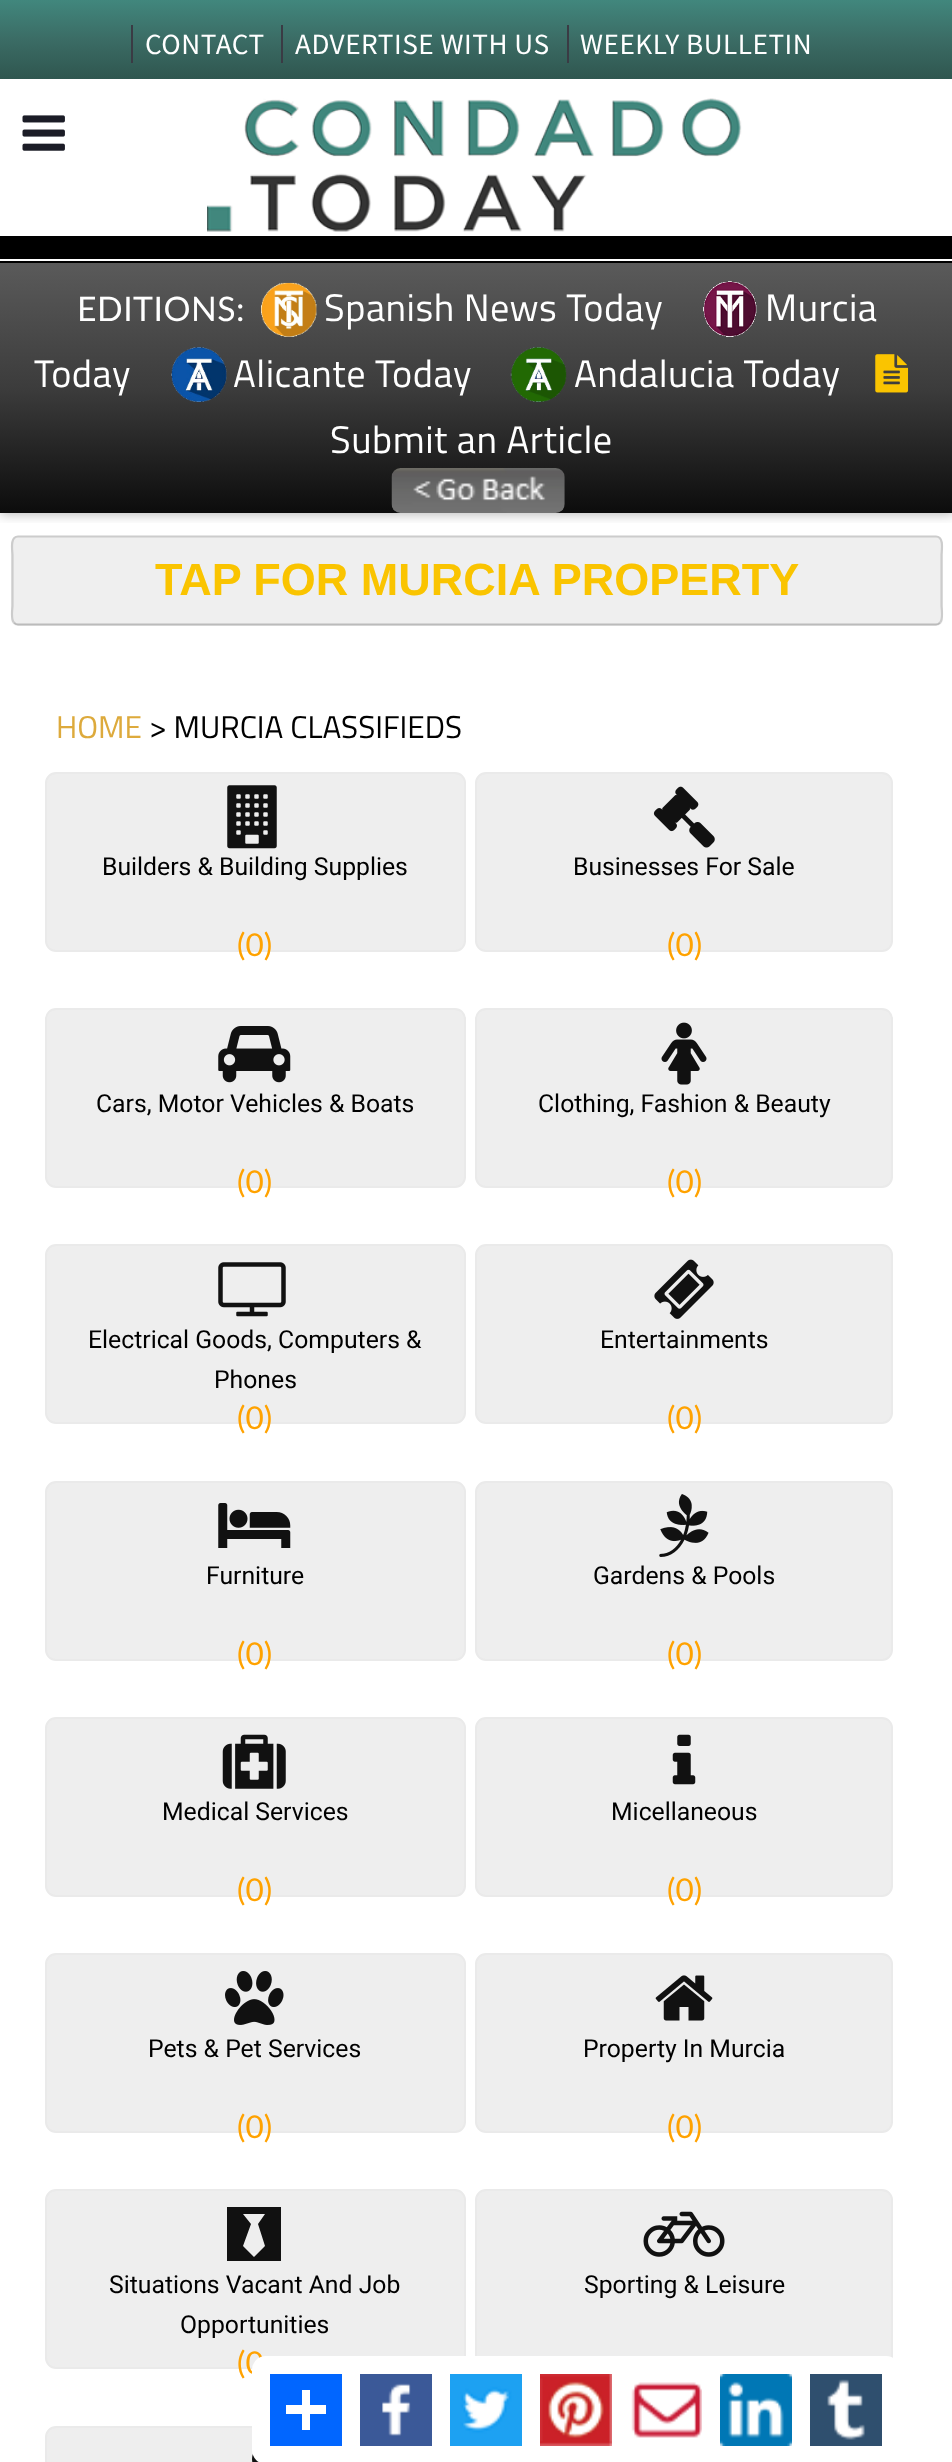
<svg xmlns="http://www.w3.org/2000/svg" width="952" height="2462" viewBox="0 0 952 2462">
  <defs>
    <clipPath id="clip1"><path d="M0 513h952v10H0z"/></clipPath>
    <linearGradient id="g1" gradientUnits="userSpaceOnUse" x1="477" y1="0" x2="477" y2="79"><stop offset="0" stop-color="#41877d"/><stop offset="0.5" stop-color="#3b6c65"/><stop offset="1" stop-color="#2f564f"/></linearGradient>
    <linearGradient id="g2" gradientUnits="userSpaceOnUse" x1="477" y1="263" x2="477" y2="513"><stop offset="0" stop-color="#5a5a5a"/><stop offset="0.5" stop-color="#3c3c3c"/><stop offset="1" stop-color="#0c0c0c"/></linearGradient>
  </defs>
  <rect width="100%" height="100%" fill="#fff"/>
  <g clip-path="url(#clip1)">
    <path d="M0 2h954v513H0z" fill="#00000040" filter="blur(5.5px)"/>
  </g>
  <path d="M0 0h952v79H0z" fill="url(#g1)"/>
  <path d="M131 25h2v38H131z" fill="#3a3b44"/>
  <path d="M281 25h2v38H281z" fill="#3a3b44"/>
  <path d="M567 25h2v38H567z" fill="#3a3b44"/>
  <path d="M0 261h952v2H0z" fill="#000"/>
  <image x="22" y="115" width="43" height="36" href="img/1.png"/>
  <image x="207" y="98" width="535" height="134" href="img/2.png"/>
  <path d="M0 236h952v23H0z" fill="#000"/>
  <path d="M0 263h952v250H0z" fill="url(#g2)"/>
  <image x="261" y="282" width="56" height="56" href="img/3.png"/>
  <image x="703" y="281" width="54" height="56" href="img/4.png"/>
  <image x="171" y="347" width="56" height="55" href="img/5.png"/>
  <image x="510" y="347" width="57" height="55" href="img/6.png"/>
  <image x="875" y="354" width="34" height="39" href="img/7.png"/>
  <image x="391" y="468" width="174" height="45" href="img/8.png"/>
  <rect x="11" y="536" width="932" height="90" rx="7" fill="#efefef"/>
  <path d="M940 622.5C939 624 937.5 624.5 936 624.5H18C16.5 624.5 15 624 14 622.5" fill="none" stroke="#bbb" stroke-width="2.2"/>
  <path d="M14 622.5C10.5 619 12.5 608 12.5 606V555C12.5 551.5 9.5 536.5 18 536.5H936C944.5 536.5 941.5 551.5 941.5 555V606C941.5 608 943.5 619 940 622.5" fill="none" stroke="#ccc" stroke-width="2.2"/>
  <rect x="46" y="773" width="419" height="178" rx="10" fill="#eee" stroke="#eaeaea" stroke-width="2"/>
  <image x="227" y="785" width="50" height="64" href="img/9.png"/>
  <rect x="476" y="773" width="416" height="178" rx="10" fill="#eee" stroke="#eaeaea" stroke-width="2"/>
  <image x="653" y="786" width="62" height="62" href="img/10.png"/>
  <rect x="46" y="1009" width="419" height="178" rx="10" fill="#eee" stroke="#eaeaea" stroke-width="2"/>
  <image x="218" y="1026" width="73" height="57" href="img/11.png"/>
  <rect x="476" y="1009" width="416" height="178" rx="10" fill="#eee" stroke="#eaeaea" stroke-width="2"/>
  <image x="661" y="1022" width="46" height="63" href="img/12.png"/>
  <rect x="46" y="1245" width="419" height="178" rx="10" fill="#eee" stroke="#eaeaea" stroke-width="2"/>
  <image x="218" y="1262" width="68" height="55" href="img/13.png"/>
  <rect x="476" y="1245" width="416" height="178" rx="10" fill="#eee" stroke="#eaeaea" stroke-width="2"/>
  <image x="654" y="1259" width="60" height="60" href="img/14.png"/>
  <rect x="46" y="1482" width="419" height="178" rx="10" fill="#eee" stroke="#eaeaea" stroke-width="2"/>
  <image x="218" y="1503" width="73" height="45" href="img/15.png"/>
  <rect x="476" y="1482" width="416" height="178" rx="10" fill="#eee" stroke="#eaeaea" stroke-width="2"/>
  <image x="659" y="1494" width="50" height="63" href="img/16.png"/>
  <rect x="46" y="1718" width="419" height="178" rx="10" fill="#eee" stroke="#eaeaea" stroke-width="2"/>
  <image x="222" y="1734" width="64" height="55" href="img/17.png"/>
  <rect x="476" y="1718" width="416" height="178" rx="10" fill="#eee" stroke="#eaeaea" stroke-width="2"/>
  <image x="672" y="1734" width="24" height="51" href="img/18.png"/>
  <rect x="46" y="1954" width="419" height="178" rx="10" fill="#eee" stroke="#eaeaea" stroke-width="2"/>
  <image x="225" y="1971" width="59" height="54" href="img/19.png"/>
  <rect x="476" y="1954" width="416" height="178" rx="10" fill="#eee" stroke="#eaeaea" stroke-width="2"/>
  <image x="655" y="1975" width="58" height="46" href="img/20.png"/>
  <rect x="46" y="2190" width="419" height="178" rx="10" fill="#eee" stroke="#eaeaea" stroke-width="2"/>
  <path d="M227 2207H281V2261H227ZM265 2246L258 2224L265 2214H243L251 2224L243 2246L254 2257Z" fill="#111"/>
  <rect x="476" y="2190" width="416" height="178" rx="10" fill="#eee" stroke="#eaeaea" stroke-width="2"/>
  <image x="643" y="2211" width="82" height="46" href="img/21.png"/>
  <rect x="46" y="2427" width="419" height="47" rx="10" fill="#eee" stroke="#eaeaea" stroke-width="2"/>
  <image x="252" y="2453" width="7" height="9" href="img/22.png"/>
  <g font-family="Source Sans Pro" font-size="29.25" letter-spacing="0.5" fill="#fff">
    <text x="145" y="54">CONTACT</text>
    <text x="295" y="54">ADVERTISE WITH US</text>
    <text x="580" y="54">WEEKLY BULLETIN</text>
  </g>
  <text x="77" y="321" font-family="Lato" font-size="33.75" letter-spacing="0.5" fill="#fff">EDITIONS:</text>
  <g font-family="Titillium Web" font-size="38.25" letter-spacing="0.5" fill="#fff">
    <text x="324" y="321">Spanish News Today</text>
    <text x="765" y="321">Murcia</text>
    <text x="34" y="387">Today</text>
    <text x="233" y="387">Alicante Today</text>
    <text x="574" y="387">Andalucia Today</text>
    <text x="330" y="453">Submit an Article</text>
  </g>
  <text x="155" y="595" font-family="Liberation Sans" font-size="45" font-weight="bold" fill="#fac400">TAP FOR MURCIA PROPERTY</text>
  <text x="56" y="738" font-family="Titillium Web" font-size="31.5" fill="#ddaa3c">HOME</text>
  <text x="149" y="738" font-family="Titillium Web" font-size="31.5" fill="#000">&gt; MURCIA CLASSIFIEDS</text>
  <text x="102" y="875" font-family="Roboto" font-size="24.75" fill="#000">Builders &amp; Building Supplies</text>
  <text x="237" y="956" font-family="Lato" font-size="31.5" fill="#ffa200">(0)</text>
  <text x="573" y="875" font-family="Roboto" font-size="24.75" fill="#000">Businesses For Sale</text>
  <text x="667" y="956" font-family="Lato" font-size="31.5" fill="#ffa200">(0)</text>
  <text x="96" y="1112" font-family="Roboto" font-size="24.75" fill="#000">Cars, Motor Vehicles &amp; Boats</text>
  <text x="237" y="1193" font-family="Lato" font-size="31.5" fill="#ffa200">(0)</text>
  <text x="538" y="1112" font-family="Roboto" font-size="24.75" fill="#000">Clothing, Fashion &amp; Beauty</text>
  <text x="667" y="1193" font-family="Lato" font-size="31.5" fill="#ffa200">(0)</text>
  <g font-family="Roboto" font-size="24.75" fill="#000">
    <text x="88" y="1348">Electrical Goods, Computers &amp;</text>
    <text x="214" y="1388">Phones</text>
  </g>
  <text x="237" y="1429" font-family="Lato" font-size="31.5" fill="#ffa200">(0)</text>
  <text x="600" y="1348" font-family="Roboto" font-size="24.75" fill="#000">Entertainments</text>
  <text x="667" y="1429" font-family="Lato" font-size="31.5" fill="#ffa200">(0)</text>
  <text x="206" y="1584" font-family="Roboto" font-size="24.75" fill="#000">Furniture</text>
  <text x="237" y="1665" font-family="Lato" font-size="31.5" fill="#ffa200">(0)</text>
  <text x="593" y="1584" font-family="Roboto" font-size="24.75" fill="#000">Gardens &amp; Pools</text>
  <text x="667" y="1665" font-family="Lato" font-size="31.5" fill="#ffa200">(0)</text>
  <text x="162" y="1820" font-family="Roboto" font-size="24.75" fill="#000">Medical Services</text>
  <text x="237" y="1901" font-family="Lato" font-size="31.5" fill="#ffa200">(0)</text>
  <text x="611" y="1820" font-family="Roboto" font-size="24.75" fill="#000">Micellaneous</text>
  <text x="667" y="1901" font-family="Lato" font-size="31.5" fill="#ffa200">(0)</text>
  <text x="148" y="2057" font-family="Roboto" font-size="24.75" fill="#000">Pets &amp; Pet Services</text>
  <text x="237" y="2138" font-family="Lato" font-size="31.5" fill="#ffa200">(0)</text>
  <text x="583" y="2057" font-family="Roboto" font-size="24.75" fill="#000">Property In Murcia</text>
  <text x="667" y="2138" font-family="Lato" font-size="31.5" fill="#ffa200">(0)</text>
  <g font-family="Roboto" font-size="24.75" fill="#000">
    <text x="109" y="2293">Situations Vacant And Job</text>
    <text x="180" y="2333">Opportunities</text>
  </g>
  <text x="237" y="2374" font-family="Lato" font-size="31.5" fill="#ffa200">(0</text>
  <text x="584" y="2293" font-family="Roboto" font-size="24.75" fill="#000">Sporting &amp; Leisure</text>
  <rect x="252" y="2356" width="648" height="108" rx="14" fill="#fff"/>
  <path d="M270 2374h72v72H270z" fill="#0166ff"/>
  <path d="M302 2390h8v40H302z" fill="#fff"/>
  <path d="M286 2405h40v9H286z" fill="#fff"/>
  <image x="360" y="2374" width="72" height="72" href="img/23.png"/>
  <image x="450" y="2374" width="72" height="72" href="img/24.png"/>
  <image x="540" y="2374" width="72" height="72" href="img/25.png"/>
  <image x="631" y="2382" width="71" height="56" href="img/26.png"/>
  <image x="720" y="2374" width="72" height="72" href="img/27.png"/>
  <image x="810" y="2374" width="72" height="72" href="img/28.png"/>
</svg>
